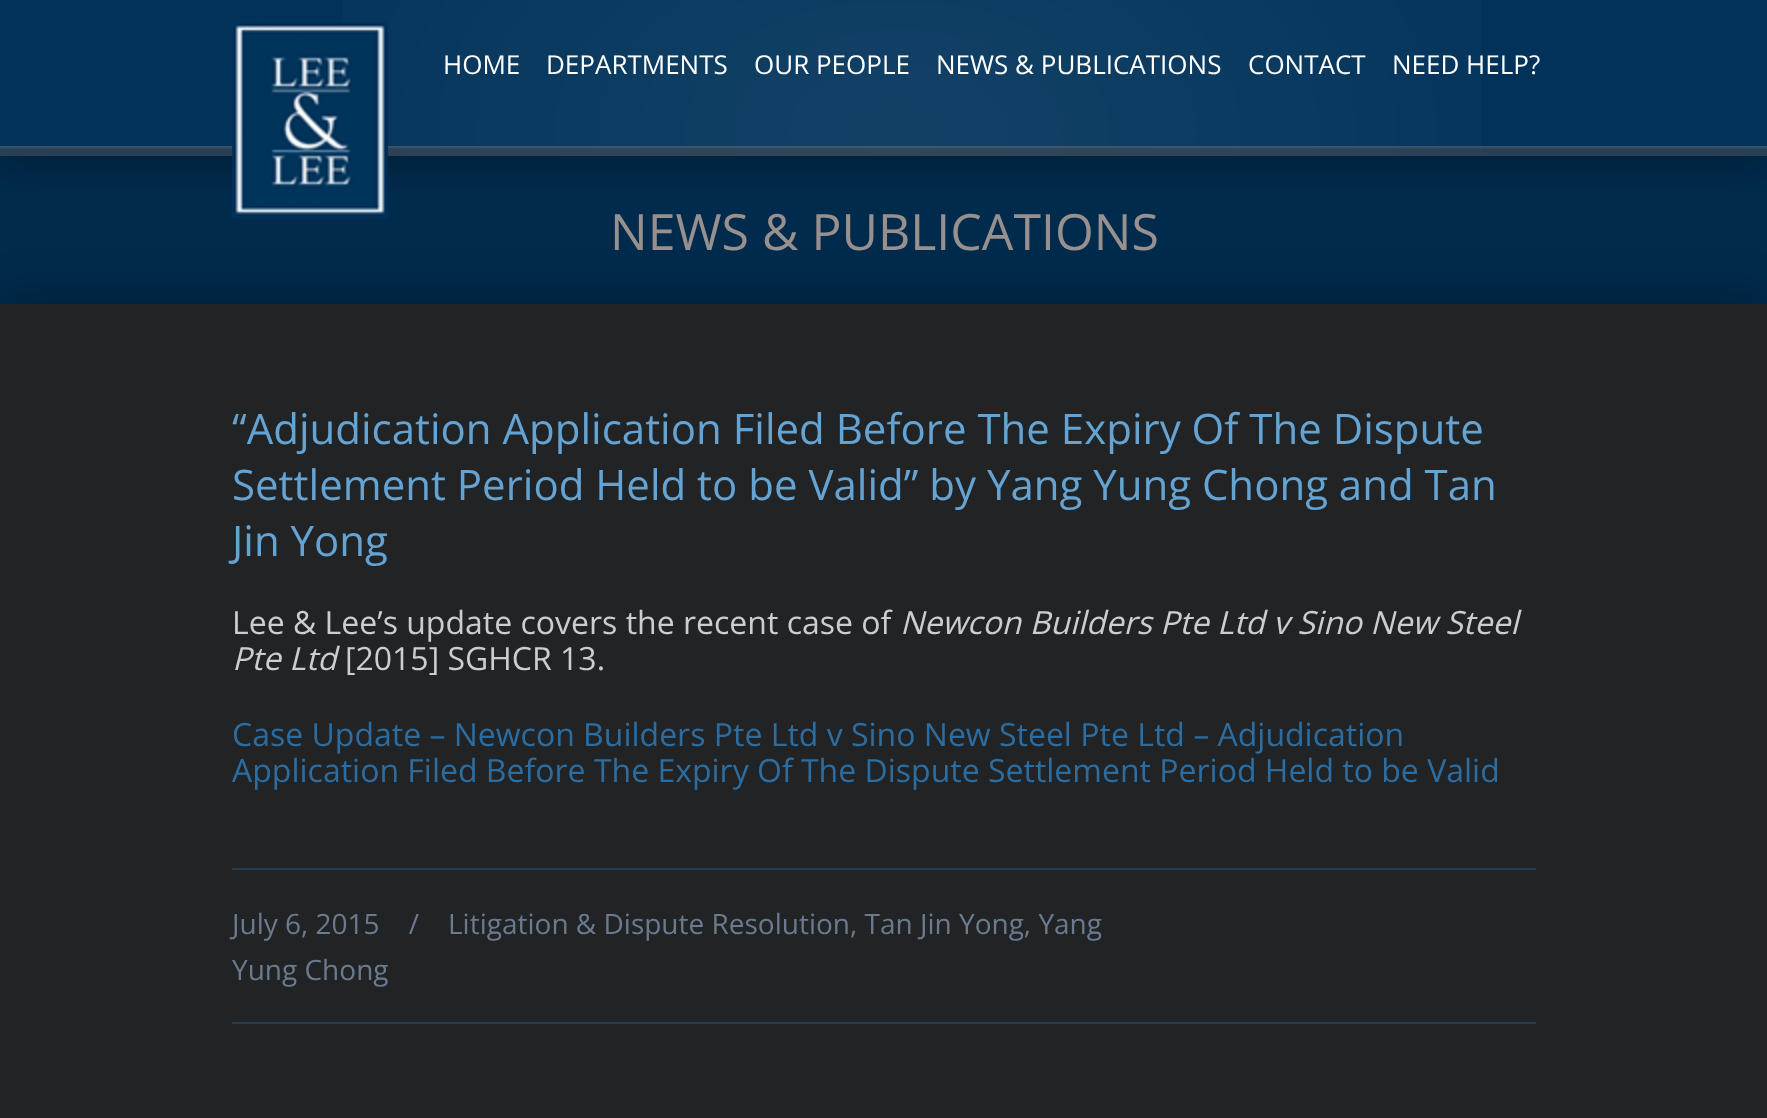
<svg xmlns="http://www.w3.org/2000/svg" width="1767" height="1118" viewBox="0 0 1767 1118">
  <defs>
    <clipPath id="clip1"><path d="M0 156h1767v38H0z"/></clipPath>
  </defs>
  <rect width="100%" height="100%" fill="#00325a"/>
  <path d="M0 156h1767v148H0z" fill="#002b4d"/>
  <g clip-path="url(#clip1)">
    <path d="M0 10h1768v156H0z" fill="#00000040" filter="blur(20px)"/>
  </g>
  <image x="343" y="0" width="1138" height="156" href="img/1.png"/>
  <image x="0" y="146" width="1767" height="10" href="img/2.png"/>
  <image x="232" y="22" width="156" height="196" href="img/3.png"/>
  <path d="M0 294h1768v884H0z" fill="#00000040" filter="blur(20px)"/>
  <path d="M0 304h1767v814H0z" fill="#212325"/>
  <path d="M232 868h1304v2H232z" fill="#243c50"/>
  <path d="M232 1022h1304v2H232z" fill="#243c50"/>
  <g font-family="Open Sans" font-size="26" fill="#fff">
    <text x="443" y="74">HOME</text>
    <text x="546" y="74">DEPARTMENTS</text>
    <text x="754" y="74">OUR PEOPLE</text>
    <text x="936" y="74">NEWS &amp; PUBLICATIONS</text>
    <text x="1248" y="74">CONTACT</text>
    <text x="1392" y="74">NEED HELP?</text>
  </g>
  <text x="610" y="250" font-family="Open Sans" font-size="50" fill="#97908e">NEWS &amp; PUBLICATIONS</text>
  <g font-family="Open Sans" font-size="42" fill="#64a3d2">
    <text x="232" y="444">“Adjudication Application Filed Before The Expiry Of The Dispute</text>
    <text x="232" y="500">Settlement Period Held to be Valid” by Yang Yung Chong and Tan</text>
    <text x="232" y="556">Jin Yong</text>
  </g>
  <text x="232" y="634" font-family="Open Sans" font-size="32" fill="#cbced1">Lee &amp; Lee’s update covers the recent case of</text>
  <g font-family="Open Sans" font-size="32" font-style="italic" fill="#cbced1">
    <text x="900" y="634">Newcon Builders Pte Ltd v Sino New Steel</text>
    <text x="232" y="670">Pte Ltd</text>
  </g>
  <text x="345" y="670" font-family="Open Sans" font-size="32" fill="#cbced1">[2015] SGHCR 13.</text>
  <g font-family="Open Sans" font-size="32" fill="#2c6da1">
    <text x="232" y="746">Case Update – Newcon Builders Pte Ltd v Sino New Steel Pte Ltd – Adjudication</text>
    <text x="232" y="782">Application Filed Before The Expiry Of The Dispute Settlement Period Held to be Valid</text>
  </g>
  <g font-family="Open Sans" font-size="28" fill="#6b7b8f">
    <text x="232" y="934" xml:space="preserve">July 6, 2015    /</text>
    <text x="448" y="934">Litigation &amp; Dispute Resolution, Tan Jin Yong, Yang</text>
    <text x="232" y="980">Yung Chong</text>
  </g>
</svg>
